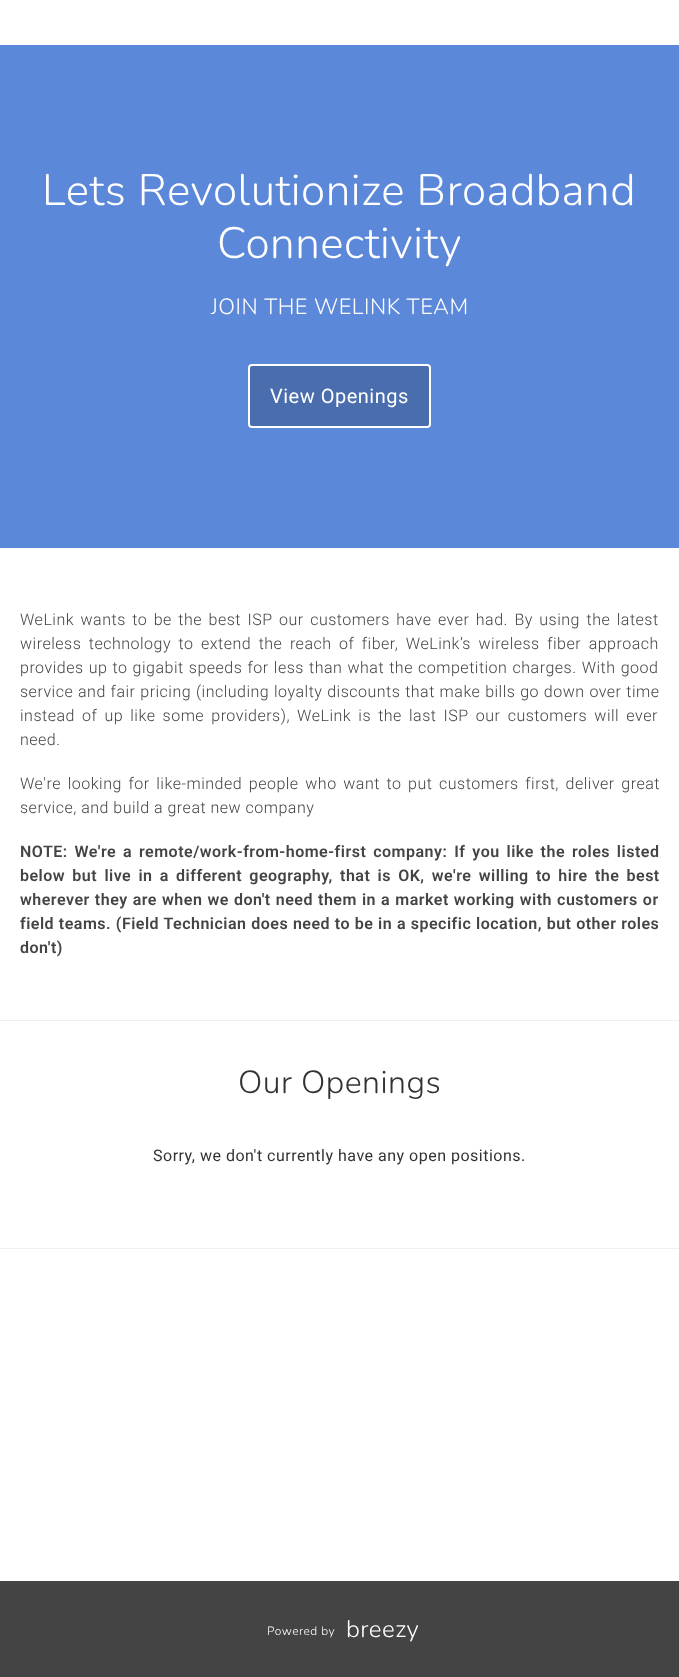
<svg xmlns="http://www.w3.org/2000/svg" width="679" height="1677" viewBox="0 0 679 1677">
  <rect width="100%" height="100%" fill="#fff"/>
  <path d="M0 45h679v503H0z" fill="#5c88da"/>
  <rect x="249" y="365" width="181" height="62" rx="3" fill="#4a6dae" stroke="#fff" stroke-width="2"/>
  <path d="M0 1020h679v1H0z" fill="#eee"/>
  <path d="M0 1248h679v1H0z" fill="#eee"/>
  <path d="M0 1581h679v96H0z" fill="#444"/>
  <g font-family="Nunito" font-size="44" font-weight="300" letter-spacing="0.5" fill="#fff">
    <text x="42" y="205">Lets Revolutionize Broadband</text>
    <text x="217" y="258">Connectivity</text>
  </g>
  <text x="211" y="314" font-family="Nunito" font-size="22" font-weight="300" letter-spacing="0.5" fill="#fff">JOIN THE WELINK TEAM</text>
  <text x="270" y="403" font-family="Roboto" font-size="20" letter-spacing="0.5" fill="#fff">View Openings</text>
  <g font-family="Roboto" font-size="16" font-weight="300" letter-spacing="0.5" fill="#444">
    <text x="20" y="625" word-spacing="2.1">WeLink wants to be the best ISP our customers have ever had. By using the latest</text>
    <text x="20" y="649" word-spacing="3.1">wireless technology to extend the reach of fiber, WeLink’s wireless fiber approach</text>
    <text x="20" y="673" word-spacing="0.75">provides up to gigabit speeds for less than what the competition charges. With good</text>
    <text x="20" y="697" word-spacing="0.4">service and fair pricing (including loyalty discounts that make bills go down over time</text>
    <text x="20" y="721" word-spacing="2.75">instead of up like some providers), WeLink is the last ISP our customers will ever</text>
    <text x="20" y="745">need.</text>
    <text x="20" y="789" word-spacing="2.25">We're looking for like-minded people who want to put customers first, deliver great</text>
    <text x="20" y="813">service, and build a great new company</text>
  </g>
  <g font-family="Roboto" font-size="16" font-weight="600" letter-spacing="0.5" fill="#444">
    <text x="20" y="857" word-spacing="2.4">NOTE: We're a remote/work-from-home-first company: If you like the roles listed</text>
    <text x="20" y="881" word-spacing="2.75">below but live in a different geography, that is OK, we're willing to hire the best</text>
    <text x="20" y="905" word-spacing="0.6">wherever they are when we don't need them in a market working with customers or</text>
    <text x="20" y="929" word-spacing="0.25">field teams. (Field Technician does need to be in a specific location, but other roles</text>
    <text x="20" y="953">don't)</text>
  </g>
  <text x="238" y="1093" font-family="Nunito" font-size="32" font-weight="300" letter-spacing="0.5" fill="#333">Our Openings</text>
  <text x="153" y="1161" font-family="Roboto" font-size="16" letter-spacing="0.5" fill="#333">Sorry, we don't currently have any open positions.</text>
  <text x="267" y="1635" font-family="Nunito" font-size="12" font-weight="300" letter-spacing="0.5" fill="#fff">Powered by</text>
  <text x="346" y="1637" font-family="Nunito" font-size="24" font-weight="300" letter-spacing="0.5" fill="#fff">breezy</text>
</svg>
